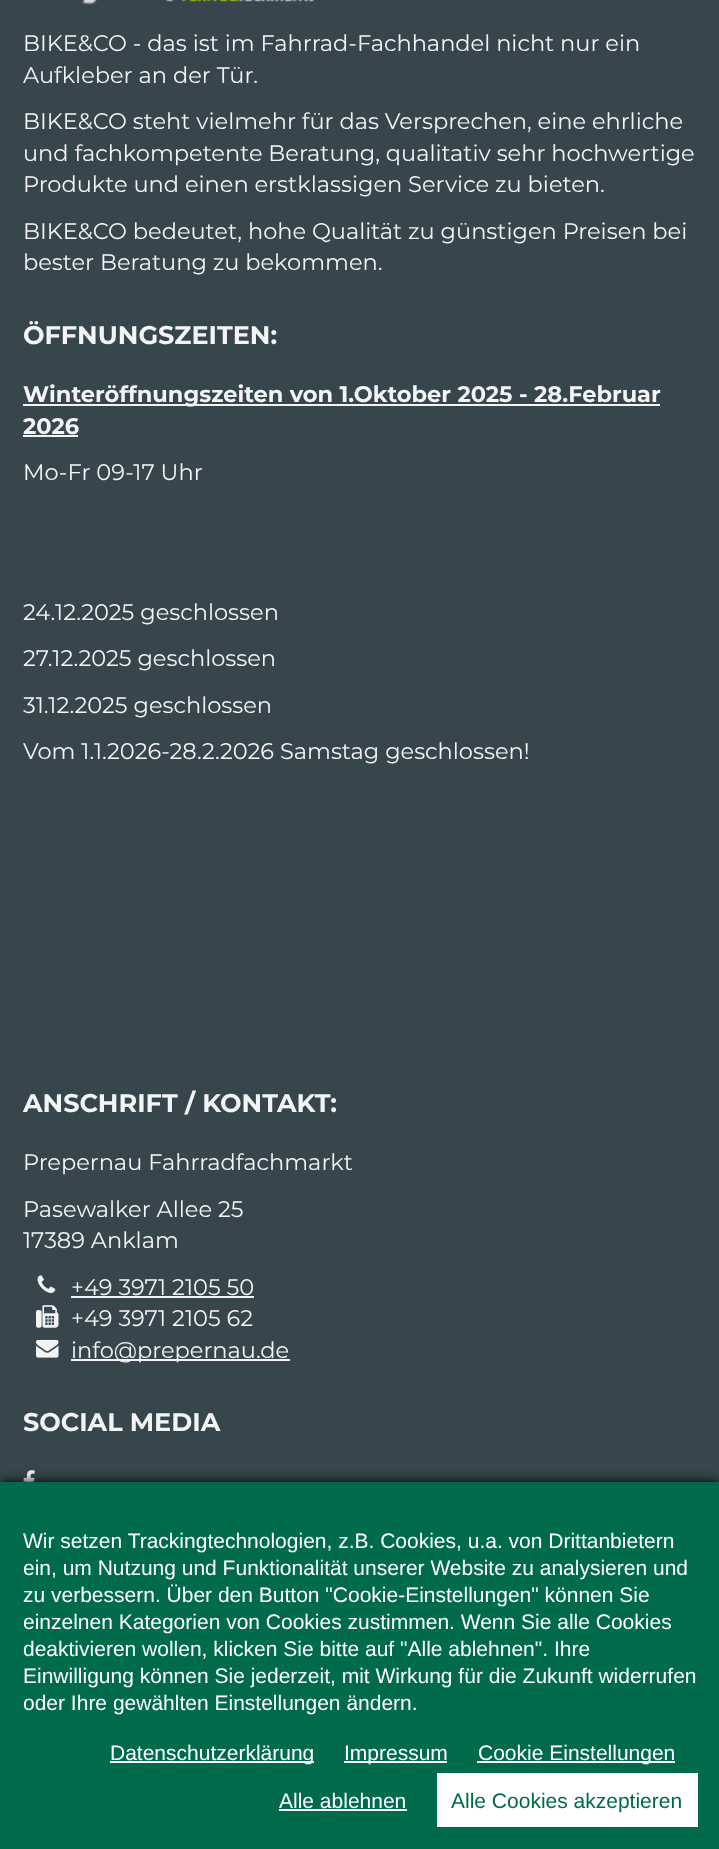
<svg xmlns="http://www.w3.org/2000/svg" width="719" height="1849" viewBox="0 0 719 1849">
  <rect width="100%" height="100%" fill="#37464c"/>
  <image x="82" y="0" width="232" height="4" href="img/1.png"/>
  <path d="M23 404h637v2H23z" fill="#f2f4f6"/>
  <path d="M23 435h55v2H23z" fill="#f2f4f6"/>
  <image x="37" y="1275" width="19" height="18" href="img/2.png"/>
  <path d="M71 1296h183v2H71z" fill="#f2f4f6"/>
  <image x="36" y="1305" width="23" height="23" href="img/3.png"/>
  <image x="36" y="1339" width="23" height="19" href="img/4.png"/>
  <path d="M71 1359h219v2H71z" fill="#f2f4f6"/>
  <image x="23" y="1470" width="12" height="12" href="img/5.png"/>
  <path d="M0 1482h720v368H0z" fill="#000" filter="blur(6px)"/>
  <path d="M0 1482h719v367H0z" fill="#006a4d"/>
  <path d="M110 1761h204v2H110z" fill="#fff"/>
  <path d="M344 1761h103v2H344z" fill="#fff"/>
  <path d="M477 1761h198v2H477z" fill="#fff"/>
  <path d="M279 1809h128v2H279z" fill="#fff"/>
  <path d="M437 1773h261v54H437z" fill="#fff"/>
  <g font-family="Montserrat" font-size="22.5" fill="#f2f4f6">
    <text x="23" y="51">BIKE&amp;CO - das ist im Fahrrad-Fachhandel nicht nur ein</text>
    <text x="23" y="83">Aufkleber an der Tür.</text>
    <text x="23" y="129">BIKE&amp;CO steht vielmehr für das Versprechen, eine ehrliche</text>
    <text x="23" y="161">und fachkompetente Beratung, qualitativ sehr hochwertige</text>
    <text x="23" y="192">Produkte und einen erstklassigen Service zu bieten.</text>
    <text x="23" y="239">BIKE&amp;CO bedeutet, hohe Qualität zu günstigen Preisen bei</text>
    <text x="23" y="270">bester Beratung zu bekommen.</text>
  </g>
  <text x="23" y="344" font-family="Montserrat" font-size="25.5" font-weight="bold" fill="#f2f4f6">ÖFFNUNGSZEITEN:</text>
  <g font-family="Montserrat" font-size="22.5" font-weight="bold" fill="#f2f4f6">
    <text x="23" y="402">Winteröffnungszeiten von 1.Oktober 2025 - 28.Februar</text>
    <text x="23" y="434">2026</text>
  </g>
  <g font-family="Montserrat" font-size="22.5" fill="#f2f4f6">
    <text x="23" y="480">Mo-Fr 09-17 Uhr</text>
    <text x="23" y="620">24.12.2025 geschlossen</text>
    <text x="23" y="666">27.12.2025 geschlossen</text>
    <text x="23" y="713">31.12.2025 geschlossen</text>
    <text x="23" y="759">Vom 1.1.2026-28.2.2026 Samstag geschlossen!</text>
  </g>
  <text x="23" y="1112" font-family="Montserrat" font-size="25.5" font-weight="bold" fill="#f2f4f6">ANSCHRIFT / KONTAKT:</text>
  <g font-family="Montserrat" font-size="22.5" fill="#f2f4f6">
    <text x="23" y="1170">Prepernau Fahrradfachmarkt</text>
    <text x="23" y="1217">Pasewalker Allee 25</text>
    <text x="23" y="1248">17389 Anklam</text>
    <text x="71" y="1295">+49 3971 2105 50</text>
    <text x="71" y="1326">+49 3971 2105 62</text>
    <text x="71" y="1358">info@prepernau.de</text>
  </g>
  <text x="23" y="1431" font-family="Montserrat" font-size="25.5" font-weight="bold" fill="#f2f4f6">SOCIAL MEDIA</text>
  <g font-family="Liberation Sans" font-size="21" fill="#fff">
    <text x="23" y="1548">Wir setzen Trackingtechnologien, z.B. Cookies, u.a. von Drittanbietern</text>
    <text x="23" y="1575">ein, um Nutzung und Funktionalität unserer Website zu analysieren und</text>
    <text x="23" y="1602">zu verbessern. Über den Button "Cookie-Einstellungen" können Sie</text>
    <text x="23" y="1629">einzelnen Kategorien von Cookies zustimmen. Wenn Sie alle Cookies</text>
    <text x="23" y="1656">deaktivieren wollen, klicken Sie bitte auf "Alle ablehnen". Ihre</text>
    <text x="23" y="1683">Einwilligung können Sie jederzeit, mit Wirkung für die Zukunft widerrufen</text>
    <text x="23" y="1710">oder Ihre gewählten Einstellungen ändern.</text>
    <text x="110" y="1760">Datenschutzerklärung</text>
    <text x="344" y="1760">Impressum</text>
    <text x="478" y="1760">Cookie Einstellungen</text>
    <text x="279" y="1808">Alle ablehnen</text>
  </g>
  <text x="451" y="1808" font-family="Liberation Sans" font-size="21" fill="#006a4d">Alle Cookies akzeptieren</text>
</svg>
